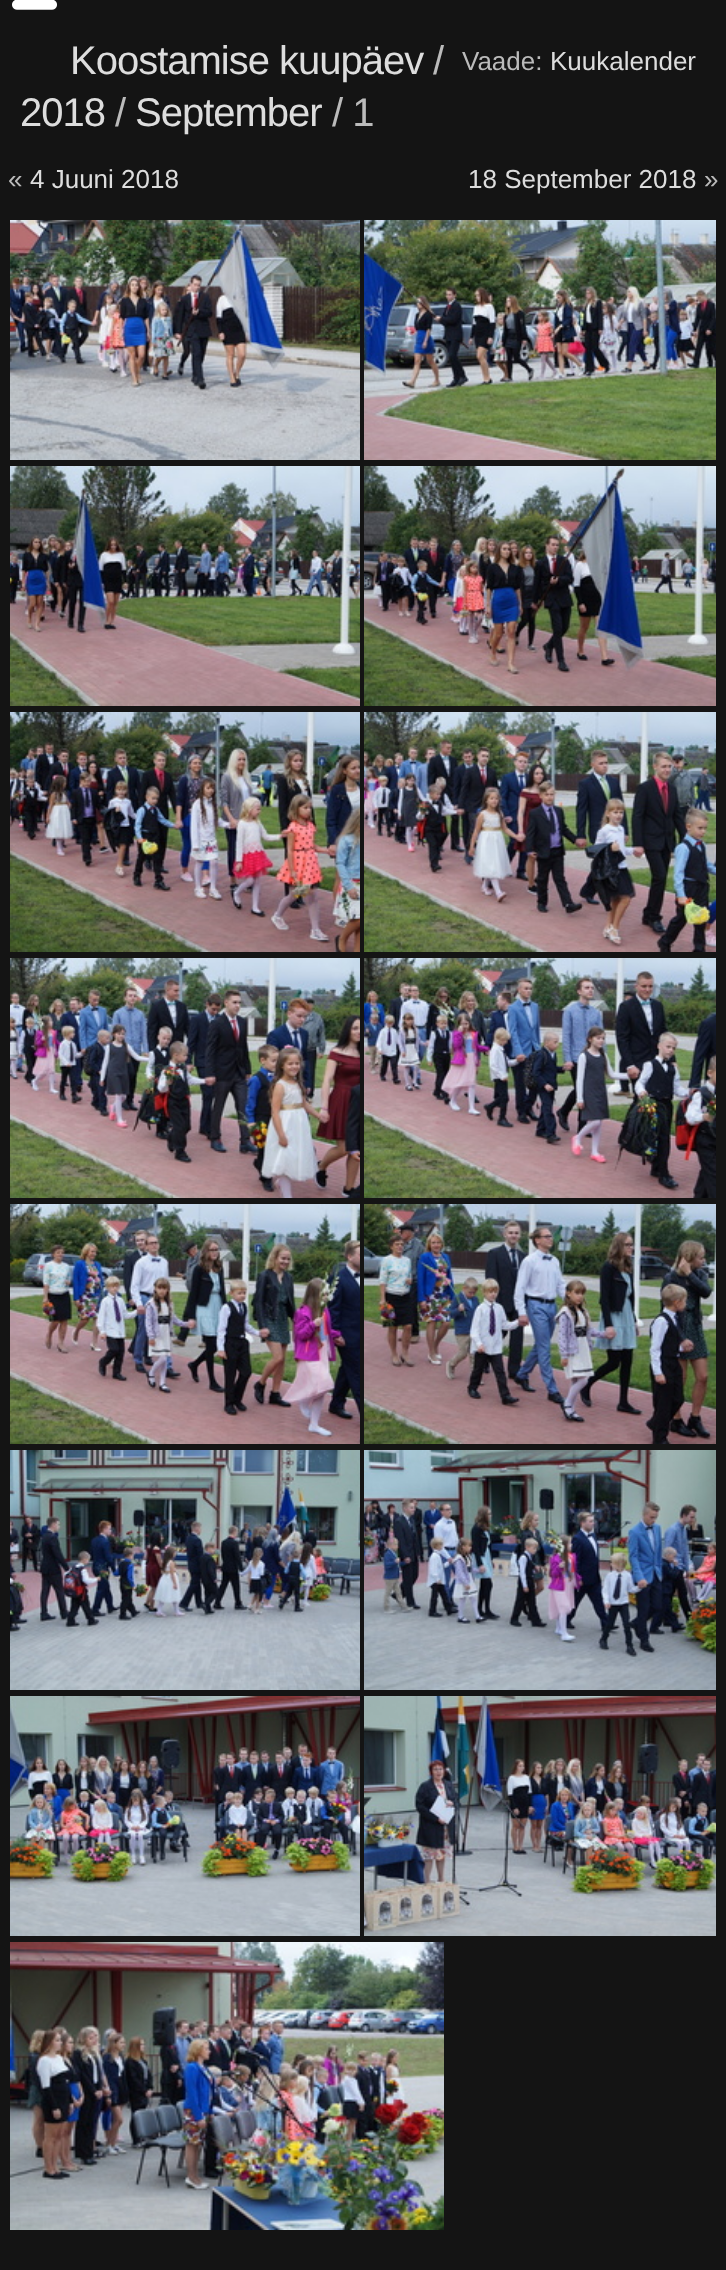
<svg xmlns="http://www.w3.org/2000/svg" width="726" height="2270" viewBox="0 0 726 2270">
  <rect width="100%" height="100%" fill="#141414"/>
  <image x="12" y="0" width="45" height="10" href="img/1.png"/>
  <image x="10" y="220" width="350" height="240" href="img/2.png"/>
  <image x="364" y="220" width="352" height="240" href="img/3.png"/>
  <image x="10" y="466" width="350" height="240" href="img/4.png"/>
  <image x="364" y="466" width="352" height="240" href="img/5.png"/>
  <image x="10" y="712" width="350" height="240" href="img/6.png"/>
  <image x="364" y="712" width="352" height="240" href="img/7.png"/>
  <image x="10" y="958" width="350" height="240" href="img/8.png"/>
  <image x="364" y="958" width="352" height="240" href="img/9.png"/>
  <image x="10" y="1204" width="350" height="240" href="img/10.png"/>
  <image x="364" y="1204" width="352" height="240" href="img/11.png"/>
  <image x="10" y="1450" width="350" height="240" href="img/12.png"/>
  <image x="364" y="1450" width="352" height="240" href="img/13.png"/>
  <image x="10" y="1696" width="350" height="240" href="img/14.png"/>
  <image x="364" y="1696" width="352" height="240" href="img/15.png"/>
  <image x="10" y="1942" width="434" height="288" href="img/16.png"/>
  <text x="70" y="74" font-family="Liberation Sans" font-size="40" letter-spacing="-1" fill="#ddd">Koostamise kuupäev</text>
  <text x="433" y="74" font-family="Liberation Sans" font-size="40" letter-spacing="-1" fill="#bbb">/</text>
  <text x="20" y="126" font-family="Liberation Sans" font-size="40" letter-spacing="-1" fill="#ddd">2018</text>
  <text x="115" y="126" font-family="Liberation Sans" font-size="40" letter-spacing="-1" fill="#bbb">/</text>
  <text x="135" y="126" font-family="Liberation Sans" font-size="40" letter-spacing="-1" fill="#ddd">September</text>
  <text x="332" y="126" font-family="Liberation Sans" font-size="40" letter-spacing="-1" fill="#bbb">/ 1</text>
  <text x="462" y="70" font-family="Liberation Sans" font-size="26" fill="#bbb">Vaade:</text>
  <text x="550" y="70" font-family="Liberation Sans" font-size="26" fill="#ddd">Kuukalender</text>
  <text x="8" y="188" font-family="Liberation Sans" font-size="26" fill="#bbb">«</text>
  <g font-family="Liberation Sans" font-size="26" fill="#ddd">
    <text x="30" y="188">4 Juuni 2018</text>
    <text x="468" y="188">18 September 2018</text>
  </g>
  <text x="704" y="188" font-family="Liberation Sans" font-size="26" fill="#bbb">»</text>
</svg>
